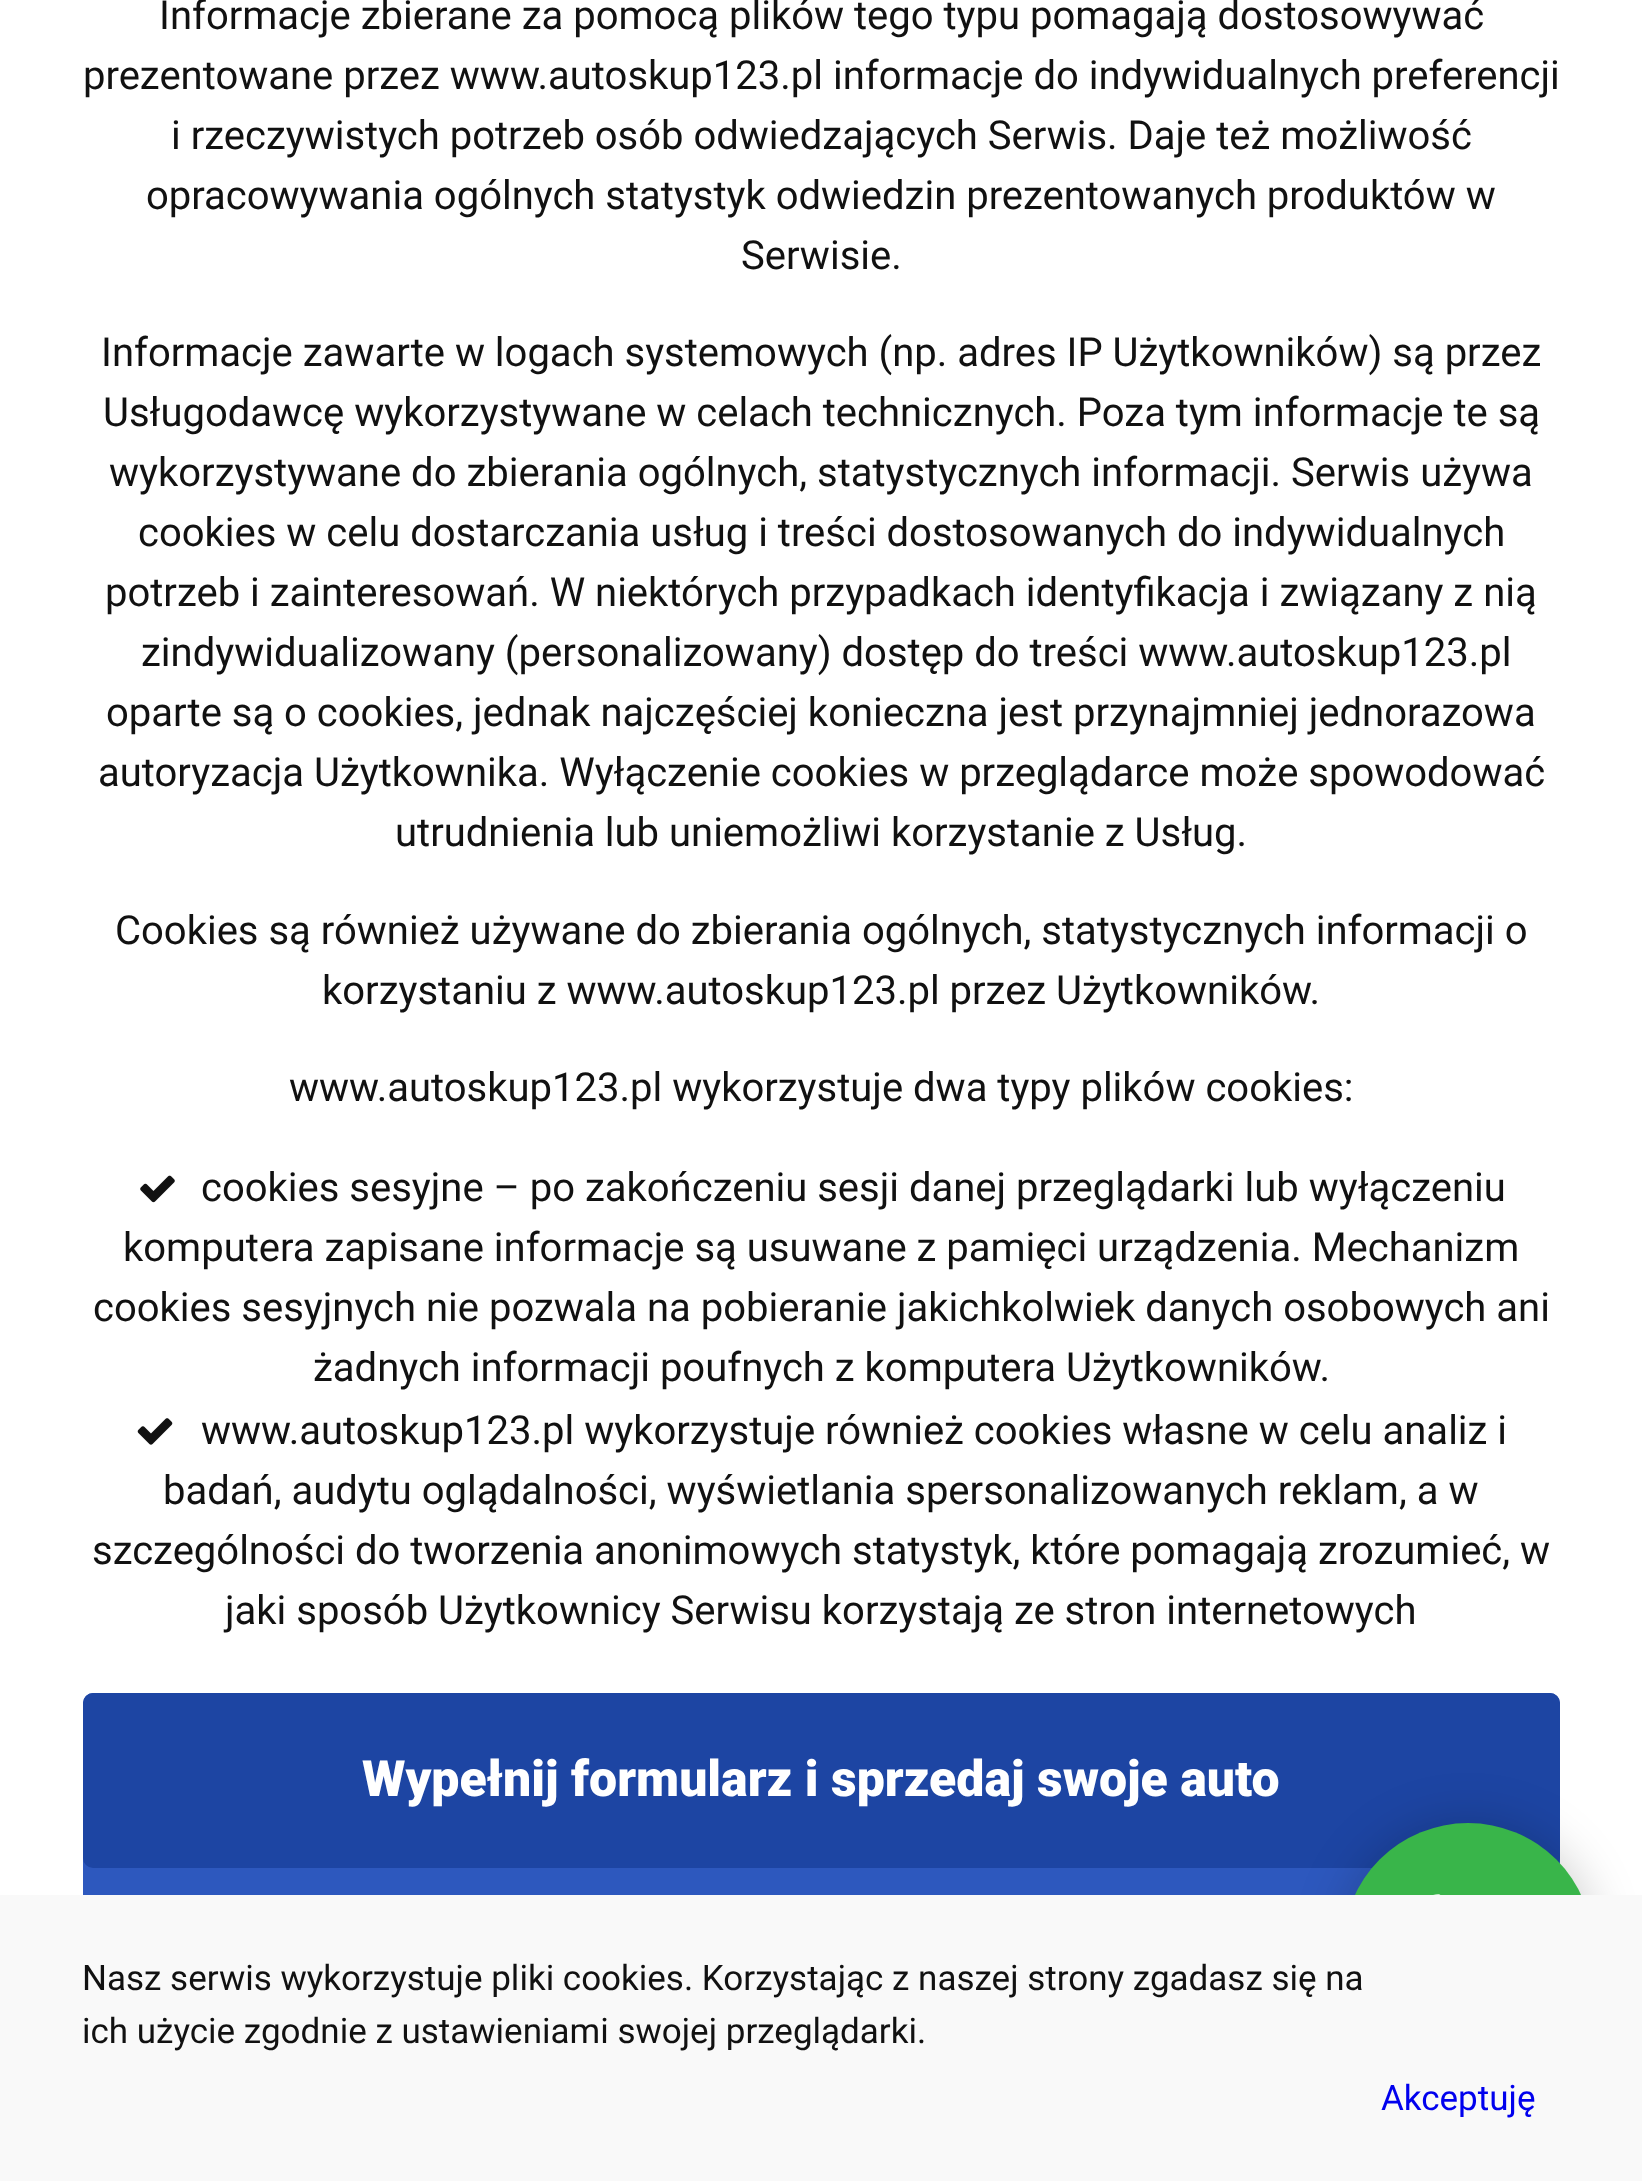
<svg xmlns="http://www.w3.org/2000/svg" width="1642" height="2181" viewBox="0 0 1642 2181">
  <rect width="100%" height="100%" fill="#fff"/>
  <image x="140" y="1175" width="35" height="28" href="img/1.png"/>
  <image x="137" y="1418" width="36" height="27" href="img/2.png"/>
  <rect x="83" y="1693" width="1477" height="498" rx="10" fill="#2d58be"/>
  <rect x="83" y="1693" width="1477" height="175" rx="10" fill="#1d45a3"/>
  <rect x="1343" y="1823" width="250" height="250" rx="125" fill="#00000033" filter="blur(25px)"/>
  <circle cx="1468" cy="1948" r="125" fill="#39b54a"/>
  <image x="1433" y="1894" width="8" height="1" href="img/3.png"/>
  <path d="M0 1895h1642v286H0z" fill="#f9f9f9"/>
  <g font-family="Roboto" font-size="40" fill="#111">
    <text x="159" y="29">Informacje zbierane za pomocą plików tego typu pomagają dostosowywać</text>
    <text x="83" y="89">prezentowane przez www.autoskup123.pl informacje do indywidualnych preferencji</text>
    <text x="171" y="149">i rzeczywistych potrzeb osób odwiedzających Serwis. Daje też możliwość</text>
    <text x="146" y="209">opracowywania ogólnych statystyk odwiedzin prezentowanych produktów w</text>
    <text x="741" y="269">Serwisie.</text>
    <text x="101" y="366">Informacje zawarte w logach systemowych (np. adres IP Użytkowników) są przez</text>
    <text x="103" y="426">Usługodawcę wykorzystywane w celach technicznych. Poza tym informacje te są</text>
    <text x="109" y="486">wykorzystywane do zbierania ogólnych, statystycznych informacji. Serwis używa</text>
    <text x="138" y="546">cookies w celu dostarczania usług i treści dostosowanych do indywidualnych</text>
    <text x="105" y="606">potrzeb i zainteresowań. W niektórych przypadkach identyfikacja i związany z nią</text>
    <text x="141" y="666">zindywidualizowany (personalizowany) dostęp do treści www.autoskup123.pl</text>
    <text x="106" y="726">oparte są o cookies, jednak najczęściej konieczna jest przynajmniej jednorazowa</text>
    <text x="98" y="786">autoryzacja Użytkownika. Wyłączenie cookies w przeglądarce może spowodować</text>
    <text x="395" y="846">utrudnienia lub uniemożliwi korzystanie z Usług.</text>
    <text x="115" y="944">Cookies są również używane do zbierania ogólnych, statystycznych informacji o</text>
    <text x="322" y="1004">korzystaniu z www.autoskup123.pl przez Użytkowników.</text>
    <text x="289" y="1101">www.autoskup123.pl wykorzystuje dwa typy plików cookies:</text>
    <text x="201" y="1201">cookies sesyjne – po zakończeniu sesji danej przeglądarki lub wyłączeniu</text>
    <text x="123" y="1261">komputera zapisane informacje są usuwane z pamięci urządzenia. Mechanizm</text>
    <text x="93" y="1321">cookies sesyjnych nie pozwala na pobieranie jakichkolwiek danych osobowych ani</text>
    <text x="313" y="1381">żadnych informacji poufnych z komputera Użytkowników.</text>
    <text x="201" y="1444">www.autoskup123.pl wykorzystuje również cookies własne w celu analiz i</text>
    <text x="163" y="1504">badań, audytu oglądalności, wyświetlania spersonalizowanych reklam, a w</text>
    <text x="92" y="1564">szczególności do tworzenia anonimowych statystyk, które pomagają zrozumieć, w</text>
    <text x="225" y="1624">jaki sposób Użytkownicy Serwisu korzystają ze stron internetowych</text>
  </g>
  <text x="362" y="1796" font-family="Roboto" font-size="50" font-weight="900" fill="#fff">Wypełnij formularz i sprzedaj swoje auto</text>
  <g font-family="Roboto" font-size="35" fill="#111">
    <text x="82" y="1990">Nasz serwis wykorzystuje pliki cookies. Korzystając z naszej strony zgadasz się na</text>
    <text x="82" y="2043">ich użycie zgodnie z ustawieniami swojej przeglądarki.</text>
  </g>
  <text x="1381" y="2110" font-family="Roboto" font-size="35" fill="#00e">Akceptuję</text>
</svg>
